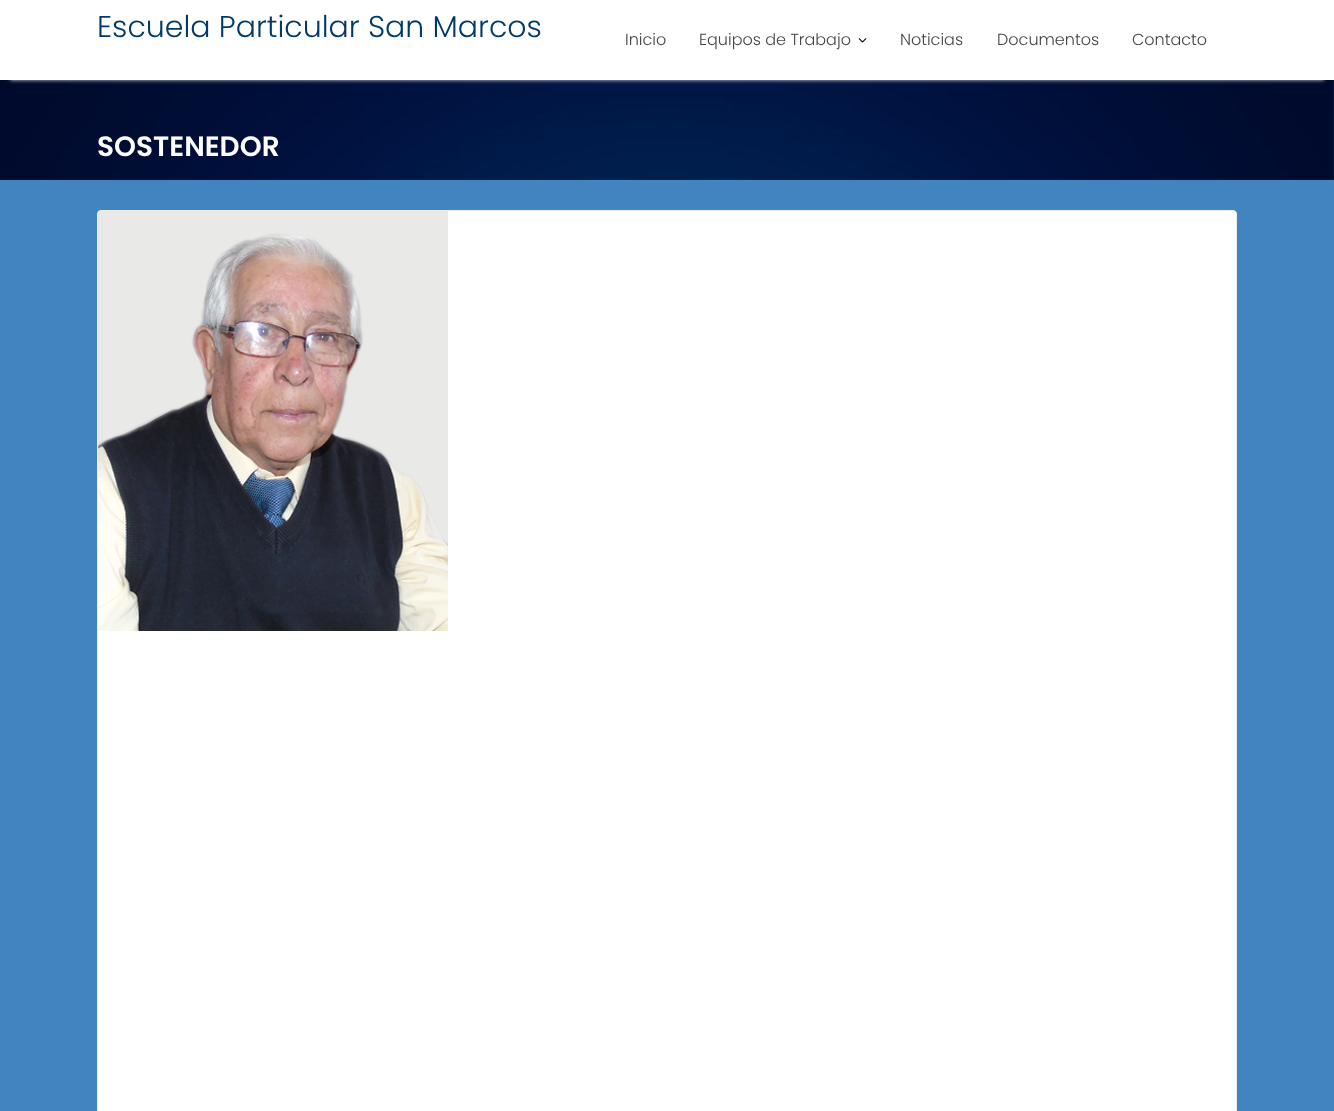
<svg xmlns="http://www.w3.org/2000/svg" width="1334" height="1111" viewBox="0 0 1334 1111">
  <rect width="100%" height="100%" fill="#4184bf"/>
  <image x="0" y="80" width="1334" height="100" href="img/2.png"/>
  <path d="M10 20h1314v60H10z" fill="#eeeeeee6" filter="blur(2px)"/>
  <path d="M0 0h1334v80H0z" fill="#fff"/>
  <image x="858" y="38" width="9" height="5" href="img/1.png"/>
  <rect x="97.5" y="210.5" width="1139" height="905" rx="3.5" fill="#fff" stroke="#eee"/>
  <image x="98" y="211" width="350" height="420" href="img/3.png"/>
  <text x="97" y="37" font-family="Poppins" font-size="30" font-weight="300" fill="#003a6a">Escuela Particular San Marcos</text>
  <g font-family="Poppins" font-size="16" font-weight="300" fill="#444">
    <text x="625" y="45">Inicio</text>
    <text x="699" y="45">Equipos de Trabajo</text>
    <text x="900" y="45">Noticias</text>
    <text x="997" y="45">Documentos</text>
    <text x="1132" y="45">Contacto</text>
  </g>
  <text x="97" y="156" font-family="Poppins" font-size="28" font-weight="600" fill="#fff">SOSTENEDOR</text>
</svg>
